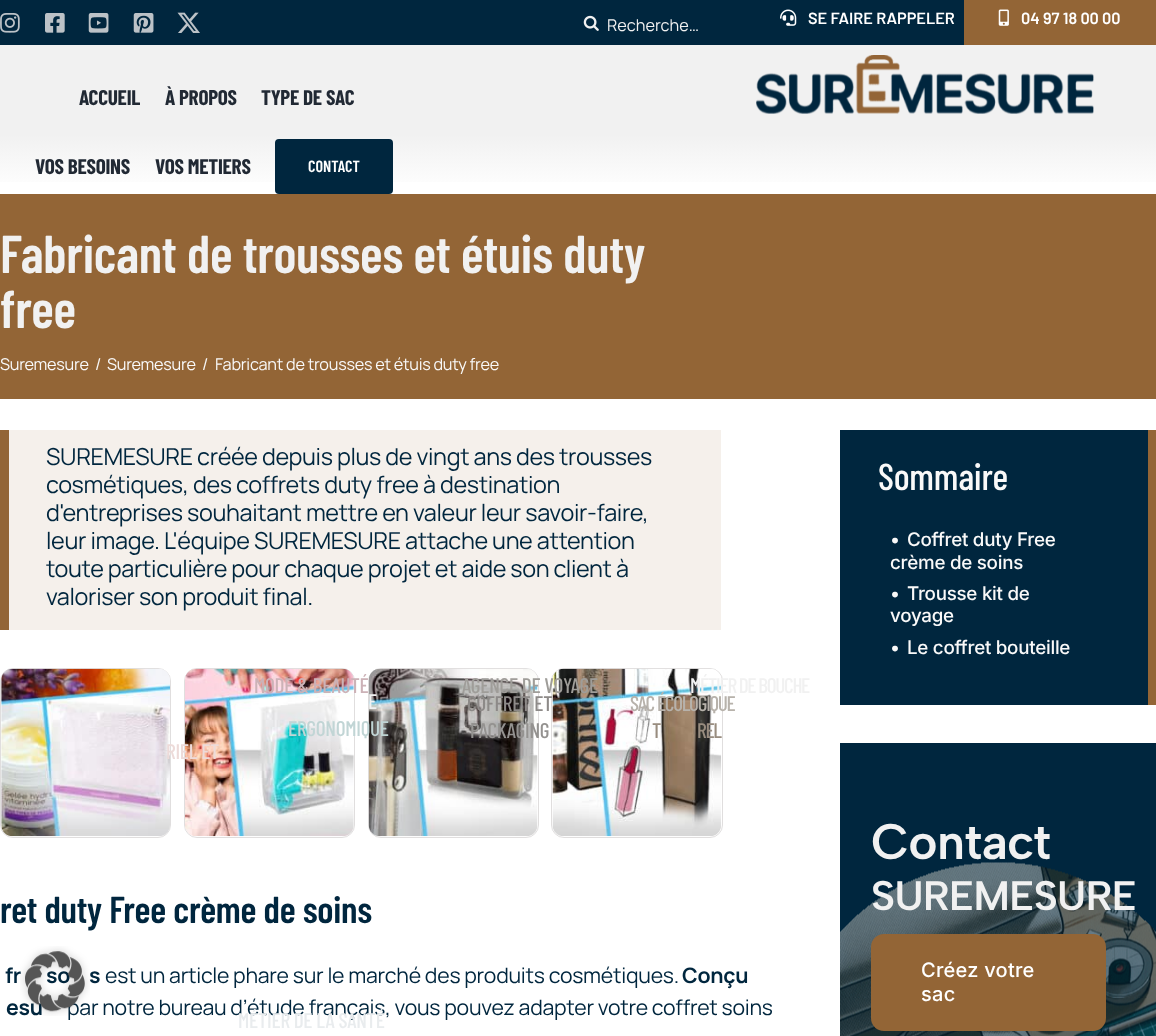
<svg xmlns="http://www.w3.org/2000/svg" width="1156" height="1036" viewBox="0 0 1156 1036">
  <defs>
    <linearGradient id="g1" gradientUnits="userSpaceOnUse" x1="578" y1="45" x2="578" y2="194"><stop offset="0.6" stop-color="#f1f1f1"/><stop offset="0.99" stop-color="#fff"/></linearGradient>
  </defs>
  <rect width="100%" height="100%" fill="#fff"/>
  <path d="M0 0h964v45H0z" fill="#00263e"/>
  <image x="0" y="13" width="20" height="20" href="img/1.png"/>
  <image x="45" y="13" width="20" height="20" href="img/2.png"/>
  <image x="88" y="13" width="21" height="20" href="img/3.png"/>
  <image x="133" y="13" width="21" height="20" href="img/4.png"/>
  <image x="177" y="12" width="23" height="21" href="img/5.png"/>
  <image x="583" y="15" width="16" height="16" href="img/6.png"/>
  <image x="780" y="9" width="17" height="17" href="img/7.png"/>
  <path d="M964 0h192v45H964z" fill="#936536"/>
  <image x="998" y="9" width="11" height="17" href="img/8.png"/>
  <path d="M0 45h1156v137H0z" fill="url(#g1)"/>
  <image x="756" y="55" width="338" height="59" href="img/9.png"/>
  <rect x="277" y="141" width="114" height="51" rx="2" fill="#00263e" stroke="#00263e" stroke-width="4"/>
  <path d="M0 194h1156v205H0z" fill="#936536"/>
  <path d="M9 430h712v200H9z" fill="#f5f0eb"/>
  <path d="M0 430h9v200H0z" fill="#936536"/>
  <rect x="0.5" y="668.5" width="170" height="169" rx="12.5" fill="none" stroke="#e0dede"/>
  <image x="1" y="668" width="169" height="169" href="img/10.png"/>
  <rect x="184.5" y="668.5" width="170" height="169" rx="12.5" fill="none" stroke="#e0dede"/>
  <image x="185" y="668" width="169" height="169" href="img/11.png"/>
  <rect x="368.5" y="668.5" width="170" height="169" rx="12.5" fill="none" stroke="#e0dede"/>
  <image x="368" y="668" width="170" height="169" href="img/12.png"/>
  <rect x="551.5" y="668.5" width="171" height="169" rx="12.5" fill="none" stroke="#e0dede"/>
  <image x="552" y="668" width="170" height="169" href="img/13.png"/>
  <path d="M840 430h308v275H840z" fill="#00263e"/>
  <path d="M1148 430h8v275H1148z" fill="#936536"/>
  <image x="840" y="743" width="316" height="293" href="img/14.png"/>
  <rect x="871" y="934" width="235" height="97" rx="13" fill="#936536"/>
  <text x="607" y="31" font-family="Manrope" font-size="16.25" fill="#f1f1f1">Recherche…</text>
  <g font-family="Barlow" font-size="16.25" font-weight="600" fill="#fff">
    <text x="808" y="24">SE FAIRE RAPPELER</text>
    <text x="1021" y="24">04 97 18 00 00</text>
  </g>
  <g font-family="Barlow Condensed" font-size="21.25" font-weight="bold" letter-spacing="-0.25" fill="#212934">
    <text x="79" y="105">ACCUEIL</text>
    <text x="165" y="105">À PROPOS</text>
    <text x="261" y="105">TYPE DE SAC</text>
    <text x="35" y="174">VOS BESOINS</text>
  </g>
  <text x="368" y="709" font-family="Barlow Condensed" font-size="21.25" font-weight="500" letter-spacing="-0.25" fill="#f1f1f1">E</text>
  <text x="288" y="736" font-family="Barlow Condensed" font-size="21.25" font-weight="500" letter-spacing="-0.25" fill="#c1d5d5">ERGONOMIQUE</text>
  <text x="467" y="711" font-family="Barlow Condensed" font-size="21.25" font-weight="500" letter-spacing="-0.25" fill="#8d8a88">COFFRET ET</text>
  <text x="470" y="738" font-family="Barlow Condensed" font-size="21.25" font-weight="500" letter-spacing="-0.25" fill="#949290">PACKAGING</text>
  <text x="630" y="711" font-family="Barlow Condensed" font-size="21.25" font-weight="500" letter-spacing="-1.25" fill="#b7b2ab">SAC ÉCOLOGIQUE</text>
  <g font-family="Barlow Condensed" font-size="21.25" font-weight="500" letter-spacing="-1.25" fill="#988c7f">
    <text x="652" y="738">T</text>
    <text x="697" y="738">REL</text>
  </g>
  <text x="166" y="759" font-family="Barlow Condensed" font-size="21.25" font-weight="500" letter-spacing="-0.25" fill="#eddbd9">RIEL ET</text>
  <text x="155" y="174" font-family="Barlow Condensed" font-size="21.25" font-weight="bold" letter-spacing="-0.25" fill="#212934">VOS METIERS</text>
  <text x="254" y="693" font-family="Barlow Condensed" font-size="21.25" font-weight="500" letter-spacing="-0.25" fill="#ccb2b7">MODE &amp; BEAUTÉ</text>
  <text x="462" y="693" font-family="Barlow Condensed" font-size="21.25" font-weight="500" letter-spacing="-0.25" fill="#9f9d99">AGENCE DE VOYAGE</text>
  <text x="690" y="693" font-family="Barlow Condensed" font-size="21.25" font-weight="500" letter-spacing="-1.25" fill="#f1f1f1">MÉTIER DE BOUCHE</text>
  <text x="308" y="172" font-family="Barlow Condensed" font-size="16.25" font-weight="600" fill="#fff">CONTACT</text>
  <g font-family="Barlow Condensed" font-size="53.1" font-weight="600" letter-spacing="-0.25" fill="#f1f1f1">
    <text x="0" y="273">Fabricant de trousses et étuis duty</text>
    <text x="0" y="328">free</text>
  </g>
  <g font-family="Manrope" font-size="16.25" letter-spacing="-0.25" fill="#f9f9f9">
    <text x="0" y="370">Suremesure</text>
    <text x="95" y="370">/</text>
    <text x="107" y="370">Suremesure</text>
    <text x="202" y="370">/</text>
    <text x="215" y="370">Fabricant de trousses et étuis duty free</text>
  </g>
  <g font-family="Manrope" font-size="23.4" letter-spacing="-0.35" fill="#00263e">
    <text x="46" y="465">SUREMESURE créée depuis plus de vingt ans des trousses</text>
    <text x="46" y="493">cosmétiques, des coffrets duty free à destination</text>
    <text x="46" y="521">d'entreprises souhaitant mettre en valeur leur savoir-faire,</text>
    <text x="46" y="549">leur image. L'équipe SUREMESURE attache une attention</text>
    <text x="46" y="577">toute particulière pour chaque projet et aide son client à</text>
    <text x="46" y="605">valoriser son produit final.</text>
  </g>
  <text x="0" y="923" font-family="Barlow Condensed" font-size="37.5" font-weight="600" letter-spacing="-0.25" fill="#00263e">ret duty Free crème de soins</text>
  <g font-family="Manrope" font-size="21.25" font-weight="bold" letter-spacing="-0.25" fill="#00263e">
    <text x="5" y="983">fr</text>
    <text x="46" y="983">so</text>
    <text x="89" y="983">s</text>
  </g>
  <text x="105" y="983" font-family="Manrope" font-size="21.25" letter-spacing="-0.25" fill="#00263e">est un article phare sur le marché des produits cosmétiques.</text>
  <g font-family="Manrope" font-size="21.25" font-weight="bold" letter-spacing="-0.25" fill="#00263e">
    <text x="682" y="983">Conçu</text>
    <text x="6" y="1015">esu</text>
  </g>
  <text x="67" y="1015" font-family="Manrope" font-size="21.25" letter-spacing="-0.25" fill="#00263e">par notre bureau d’étude français, vous pouvez adapter votre coffret soins</text>
  <text x="238" y="1028" font-family="Barlow Condensed" font-size="21.25" font-weight="500" letter-spacing="-0.25" fill="#e9ecee">MÉTIER DE LA SANTÉ</text>
  <text x="878" y="490" font-family="Barlow Condensed" font-size="37.5" font-weight="500" letter-spacing="-0.25" fill="#f9f9f9">Sommaire</text>
  <g font-family="Inter" font-size="18.75" font-weight="500" letter-spacing="-0.25" fill="#f9f9f9">
    <text x="890" y="546">•</text>
    <text x="907" y="546">Coffret duty Free</text>
    <text x="890" y="569">crème de soins</text>
    <text x="890" y="600">•</text>
    <text x="907" y="600">Trousse kit de</text>
    <text x="890" y="622">voyage</text>
    <text x="890" y="654">•</text>
    <text x="907" y="654">Le coffret bouteille</text>
  </g>
  <text x="871" y="859" font-family="Albert Sans" font-size="50" font-weight="600" letter-spacing="-0.75" fill="#f1f1f1">Contact</text>
  <text x="871" y="910" font-family="Albert Sans" font-size="41.25" font-weight="600" letter-spacing="-0.6" fill="#f1f1f1">SUREMESURE</text>
  <g font-family="Inter" font-size="20" font-weight="500" letter-spacing="0.25" fill="#fff">
    <text x="921" y="977">Créez votre</text>
    <text x="921" y="1001">sac</text>
  </g>
  <image x="20" y="946" width="70" height="70" href="img/15.png"/>
</svg>
